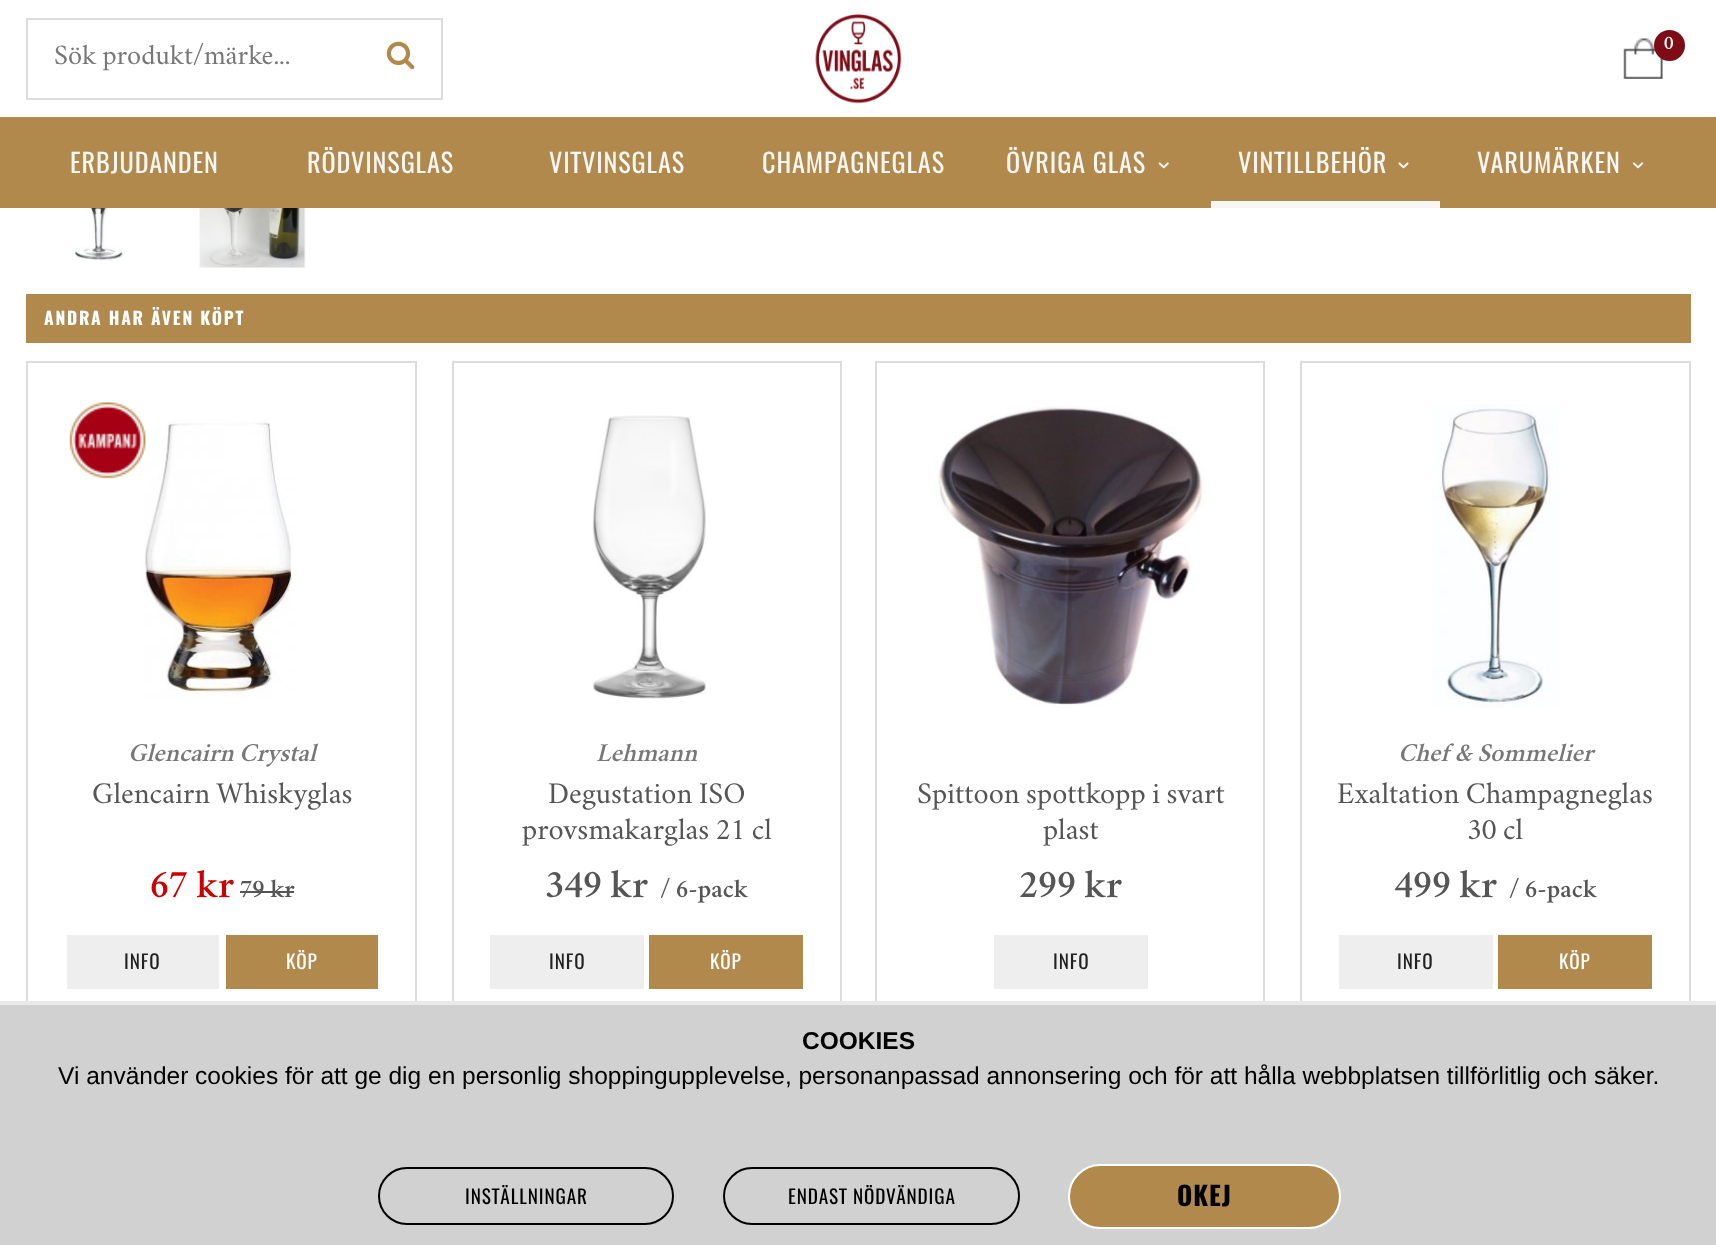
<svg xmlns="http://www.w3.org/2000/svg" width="1716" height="1245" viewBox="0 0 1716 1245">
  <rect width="100%" height="100%" fill="#fff"/>
  <path d="M27 19h415v80H27z" fill="none" stroke="#dcdcdc" stroke-width="2"/>
  <image x="386" y="41" width="29" height="29" href="img/1.png"/>
  <image x="815" y="14" width="87" height="90" href="img/2.png"/>
  <image x="1623" y="38" width="40" height="41" href="img/3.png"/>
  <circle cx="1669.5" cy="45.5" r="15.5" fill="#7e0c16"/>
  <path d="M0 117h1716v91H0z" fill="#b1894c"/>
  <image x="1158" y="162" width="11" height="7" href="img/4.png"/>
  <path d="M1211 201h229v7H1211z" fill="#f6f6f4"/>
  <image x="1398" y="162" width="11" height="7" href="img/5.png"/>
  <image x="1633" y="162" width="10" height="7" href="img/6.png"/>
  <image x="70" y="208" width="58" height="53" href="img/7.png"/>
  <image x="199" y="208" width="107" height="60" href="img/8.png"/>
  <path d="M26 294h1665v49H26z" fill="#b1894c"/>
  <path d="M27 362h389v661H27z" fill="none" stroke="#dcdcdc" stroke-width="2"/>
  <image x="143" y="419" width="151" height="281" href="img/10.png"/>
  <image x="69" y="402" width="77" height="77" href="img/9.png"/>
  <path d="M240 891h54v2H240z" fill="#555"/>
  <path d="M67 935h152v54H67z" fill="#eee"/>
  <path d="M226 935h152v54H226z" fill="#b1894c"/>
  <path d="M453 362h388v661H453z" fill="none" stroke="#dcdcdc" stroke-width="2"/>
  <image x="592" y="415" width="114" height="284" href="img/11.png"/>
  <path d="M490 935h154v54H490z" fill="#eee"/>
  <path d="M649 935h154v54H649z" fill="#b1894c"/>
  <path d="M876 362h388v661H876z" fill="none" stroke="#dcdcdc" stroke-width="2"/>
  <image x="935" y="406" width="271" height="302" href="img/12.png"/>
  <path d="M994 935h154v54H994z" fill="#eee"/>
  <path d="M1301 362h389v661H1301z" fill="none" stroke="#dcdcdc" stroke-width="2"/>
  <image x="1432" y="404" width="127" height="304" href="img/13.png"/>
  <path d="M1339 935h154v54H1339z" fill="#eee"/>
  <path d="M1498 935h154v54H1498z" fill="#b1894c"/>
  <path d="M0 1005h1716v240H0z" fill="#d1d1d1"/>
  <path d="M0 1001h1716v4H0z" fill="#e9e9e9"/>
  <rect x="379" y="1168" width="294" height="56" rx="28" fill="none" stroke="#000" stroke-width="2"/>
  <rect x="724" y="1168" width="295" height="56" rx="28" fill="none" stroke="#000" stroke-width="2"/>
  <rect x="1069" y="1165" width="271" height="63" rx="31.5" fill="#b1894c" stroke="#fff" stroke-width="2"/>
  <text x="54" y="64" font-family="Crimson Text" font-size="24.5" fill="#777">Sök produkt/märke...</text>
  <text x="1664" y="49" font-family="Crimson Text" font-size="17.5" font-weight="600" fill="#fff">0</text>
  <g font-family="Oswald" font-size="26.25" letter-spacing="0.9" fill="#f6f6f4">
    <text x="70" y="173">ERBJUDANDEN</text>
    <text x="307" y="173">RÖDVINSGLAS</text>
    <text x="549" y="173">VITVINSGLAS</text>
    <text x="762" y="173">CHAMPAGNEGLAS</text>
    <text x="1006" y="173">ÖVRIGA GLAS</text>
    <text x="1238" y="173">VINTILLBEHÖR</text>
    <text x="1477" y="173">VARUMÄRKEN</text>
  </g>
  <text x="44" y="325" font-family="Oswald" font-size="17.5" font-weight="bold" letter-spacing="1.75" fill="#fff">ANDRA HAR ÄVEN KÖPT</text>
  <text x="128" y="761" font-family="Crimson Text" font-size="22.75" font-weight="600" font-style="italic" fill="#777">Glencairn Crystal</text>
  <text x="92" y="803" font-family="Crimson Text" font-size="26.25" fill="#555">Glencairn Whiskyglas</text>
  <text x="150" y="897" font-family="Crimson Text" font-size="35" font-weight="600" fill="#c00">67 kr</text>
  <text x="240" y="897" font-family="Crimson Text" font-size="22.75" font-weight="600" fill="#555">79 kr</text>
  <text x="124" y="969" font-family="Oswald" font-size="19.25" letter-spacing="0.9" fill="#222">INFO</text>
  <text x="286" y="969" font-family="Oswald" font-size="19.25" letter-spacing="0.9" fill="#fff">KÖP</text>
  <text x="596" y="761" font-family="Crimson Text" font-size="22.75" font-weight="600" font-style="italic" fill="#777">Lehmann</text>
  <g font-family="Crimson Text" font-size="26.25" fill="#555">
    <text x="548" y="803">Degustation ISO</text>
    <text x="522" y="839">provsmakarglas 21 cl</text>
  </g>
  <text x="545" y="897" font-family="Crimson Text" font-size="35" font-weight="600" fill="#555">349 kr</text>
  <text x="660" y="897" font-family="Crimson Text" font-size="22.75" font-weight="600" fill="#555">/ 6-pack</text>
  <text x="549" y="969" font-family="Oswald" font-size="19.25" letter-spacing="0.9" fill="#222">INFO</text>
  <text x="710" y="969" font-family="Oswald" font-size="19.25" letter-spacing="0.9" fill="#fff">KÖP</text>
  <g font-family="Crimson Text" font-size="26.25" fill="#555">
    <text x="917" y="803">Spittoon spottkopp i svart</text>
    <text x="1043" y="839">plast</text>
  </g>
  <text x="1019" y="897" font-family="Crimson Text" font-size="35" font-weight="600" fill="#555">299 kr</text>
  <text x="1053" y="969" font-family="Oswald" font-size="19.25" letter-spacing="0.9" fill="#222">INFO</text>
  <text x="1398" y="761" font-family="Crimson Text" font-size="22.75" font-weight="600" font-style="italic" fill="#777">Chef &amp; Sommelier</text>
  <g font-family="Crimson Text" font-size="26.25" fill="#555">
    <text x="1337" y="803">Exaltation Champagneglas</text>
    <text x="1467" y="839">30 cl</text>
  </g>
  <text x="1394" y="897" font-family="Crimson Text" font-size="35" font-weight="600" fill="#555">499 kr</text>
  <text x="1509" y="897" font-family="Crimson Text" font-size="22.75" font-weight="600" fill="#555">/ 6-pack</text>
  <text x="1397" y="969" font-family="Oswald" font-size="19.25" letter-spacing="0.9" fill="#222">INFO</text>
  <text x="1559" y="969" font-family="Oswald" font-size="19.25" letter-spacing="0.9" fill="#fff">KÖP</text>
  <text x="802" y="1049" font-family="Liberation Sans" font-size="24.5" font-weight="bold" fill="#000">COOKIES</text>
  <text x="58" y="1084" font-family="Liberation Sans" font-size="24.5" fill="#000">Vi använder cookies för att ge dig en personlig shoppingupplevelse, personanpassad annonsering och för att hålla webbplatsen tillförlitlig och säker.</text>
  <g font-family="Oswald" font-size="19.25" letter-spacing="0.9" fill="#000">
    <text x="465" y="1204">INSTÄLLNINGAR</text>
    <text x="788" y="1204">ENDAST NÖDVÄNDIGA</text>
  </g>
  <text x="1177" y="1206" font-family="Oswald" font-size="26.25" font-weight="bold" letter-spacing="0.9" fill="#000">OKEJ</text>
</svg>
